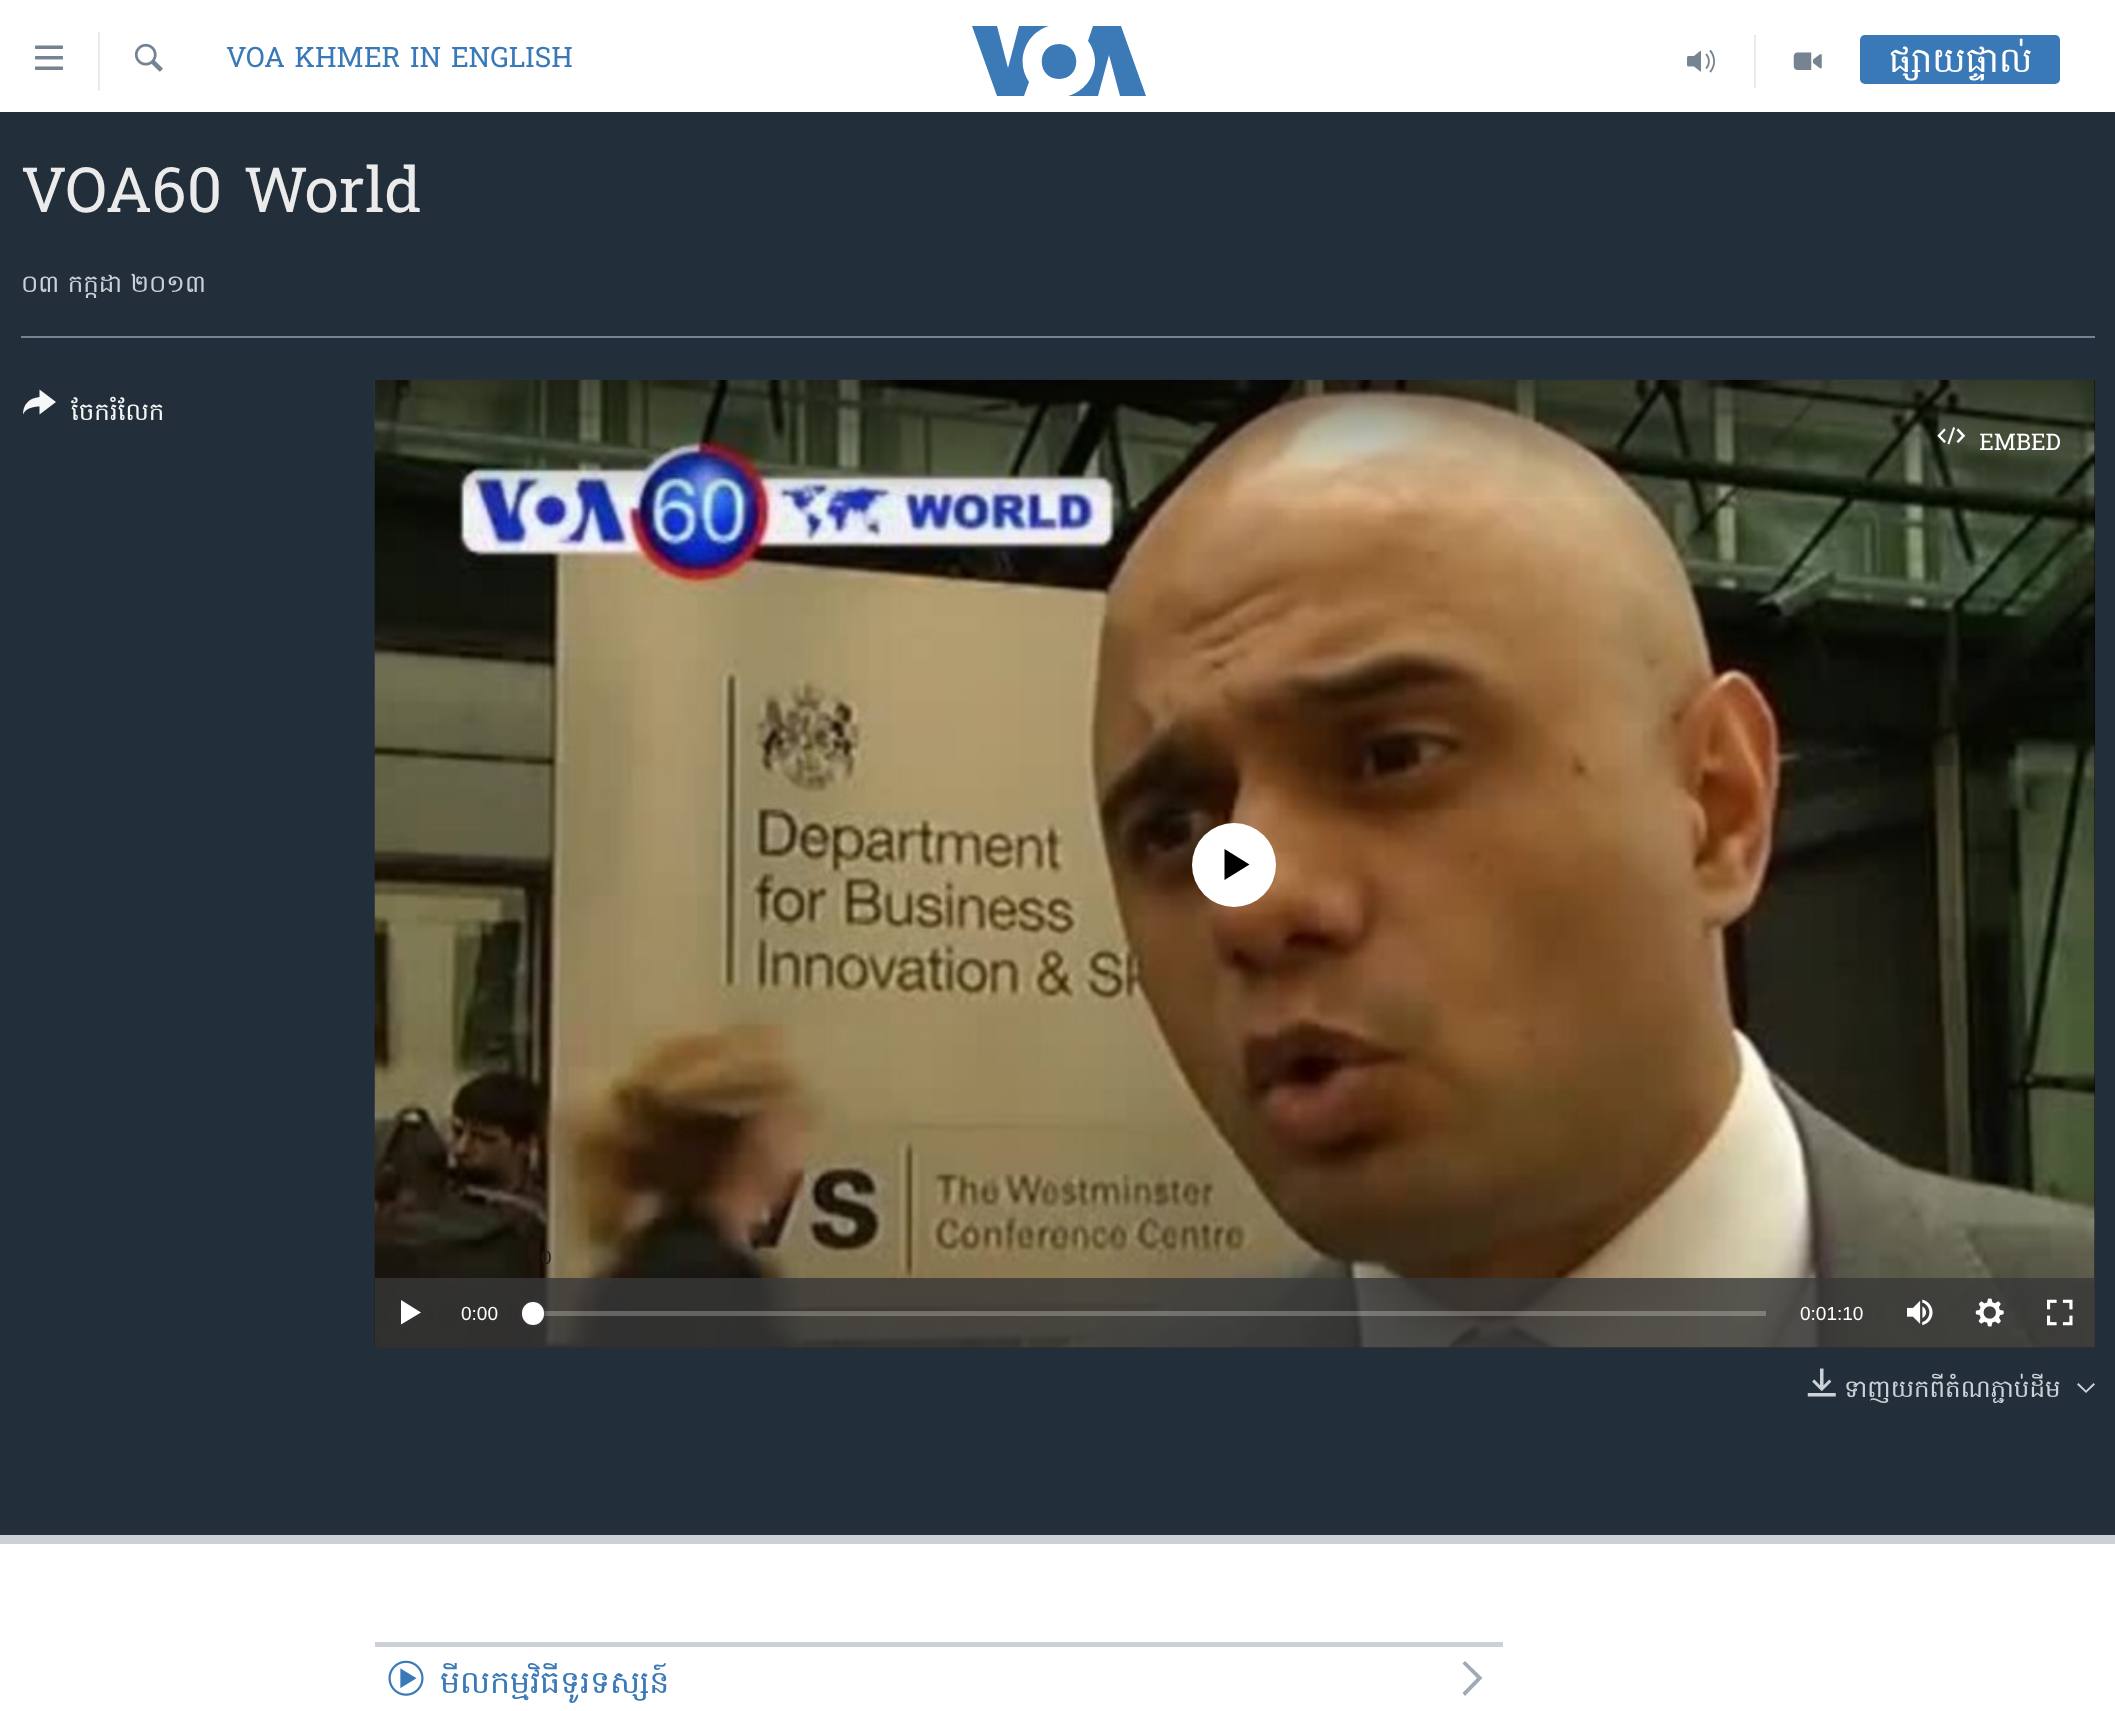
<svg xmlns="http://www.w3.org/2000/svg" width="2115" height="1711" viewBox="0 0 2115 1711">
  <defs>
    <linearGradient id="g1" gradientUnits="userSpaceOnUse" x1="1235" y1="380" x2="1235" y2="502"><stop offset="0" stop-color="#000" stop-opacity="0.5"/><stop offset="1" stop-color="#000" stop-opacity="0"/></linearGradient>
  </defs>
  <rect width="100%" height="100%" fill="#fff"/>
  <image x="35" y="45" width="28" height="25" href="img/1.png"/>
  <path d="M98 32h2v59H98z" fill="#ebebeb"/>
  <image x="134" y="43" width="29" height="29" href="img/2.png"/>
  <path d="M1029 82L1024 96H997L972 26H997L1008 68L1019 26H1049C1025 33 1015 62 1029 82ZM1059 44C1036 44 1036 79 1059 79C1082 79 1082 44 1059 44ZM1095 61C1095 78 1083 92 1068 96H1098L1109 55L1120 96H1146L1121 26H1093L1088 41C1092 46 1095 54 1095 61Z" fill="#3b79b7"/>
  <path d="M1754 35h2v53H1754z" fill="#ebebeb"/>
  <image x="1687" y="49" width="28" height="24" href="img/3.png"/>
  <image x="1793" y="52" width="29" height="18" href="img/4.png"/>
  <rect x="1860" y="35" width="200" height="49" rx="5" fill="#3a79b7"/>
  <path d="M0 112h2115v1423H0z" fill="#222f3a"/>
  <path d="M0 1535h2115v9H0z" fill="#cbd1d6"/>
  <path d="M21 336h2074v2H21z" fill="#768492"/>
  <path d="M23 414.5C23 404.5 29 398 39.5 397V389.5L56 402L39.5 414.5V406.5C33 406.5 25.5 408.5 23 414.5Z" fill="#f6f7f8"/>
  <path d="M375 380h1720v968H375z" fill="#000"/>
  <image x="374" y="379" width="1721" height="969" href="img/5.png"/>
  <path d="M375 380h1720v117H375z" fill="url(#g1)"/>
  <image x="1937" y="427" width="29" height="18" href="img/6.png"/>
  <circle cx="1234" cy="865" r="42" fill="#fff"/>
  <path d="M1224.5 880L1249.5 864.5L1224.5 849Z" fill="#000"/>
  <path d="M375 1278h1720v70H375z" fill="#383838cc"/>
  <path d="M401 1324.5L421 1312.5L401 1300Z" fill="#fff"/>
  <path d="M543 1311h1223v5H543z" fill="#ffffff40"/>
  <rect x="522" y="1302" width="22" height="23" rx="11" fill="#414144" filter="blur(2.5px)"/>
  <rect x="522" y="1302" width="22" height="23" rx="11" fill="#fff"/>
  <image x="1907" y="1299" width="26" height="26" href="img/7.png"/>
  <image x="1975" y="1298" width="29" height="29" href="img/8.png"/>
  <image x="2047" y="1299" width="26" height="27" href="img/9.png"/>
  <image x="1807" y="1368" width="29" height="29" href="img/10.png"/>
  <path d="M2077 1384.5L2086 1393L2095 1384.5L2093.5 1383L2086 1390.5L2078.5 1383Z" fill="#cbd1d6"/>
  <path d="M375 1642h1128v5H375z" fill="#cbd1d6"/>
  <image x="388" y="1660" width="36" height="36" href="img/11.png"/>
  <path d="M1465 1696L1482.5 1678L1465 1661L1462.5 1663.5L1477 1678L1462.5 1693Z" fill="#a1aab4"/>
  <text x="226" y="67" font-family="Hanuman" font-size="28" fill="#3a79b7">VOA KHMER IN ENGLISH</text>
  <text x="1889" y="72" font-family="Hanuman" font-size="35" fill="#fff">ផ្សាយផ្ទាល់</text>
  <text x="21" y="212" font-family="Hanuman" font-size="62.25" fill="#ebebeb">VOA60 World</text>
  <text x="21" y="292" font-family="Hanuman" font-size="24.5" fill="#cbd1d6">០៣ កក្កដា ២០១៣</text>
  <text x="71" y="420" font-family="Hanuman" font-size="24.5" fill="#f6f7f8">ចែករំលែក</text>
  <text x="1979" y="450" font-family="Hanuman" font-size="23" fill="#fff">EMBED</text>
  <text x="541" y="1264" font-family="Liberation Sans" font-size="19" fill="#281f14">0</text>
  <g font-family="Liberation Sans" font-size="19" fill="#fff">
    <text x="461" y="1320">0:00</text>
    <text x="1800" y="1320">0:01:10</text>
  </g>
  <text x="1844" y="1397" font-family="Hanuman" font-size="24.5" fill="#cbd1d6">ទាញយកពីតំណភ្ជាប់ដើម</text>
  <text x="440" y="1693" font-family="Hanuman" font-size="31.5" fill="#3a79b7">មើលកម្មវិធីទូរទស្សន៍</text>
</svg>
